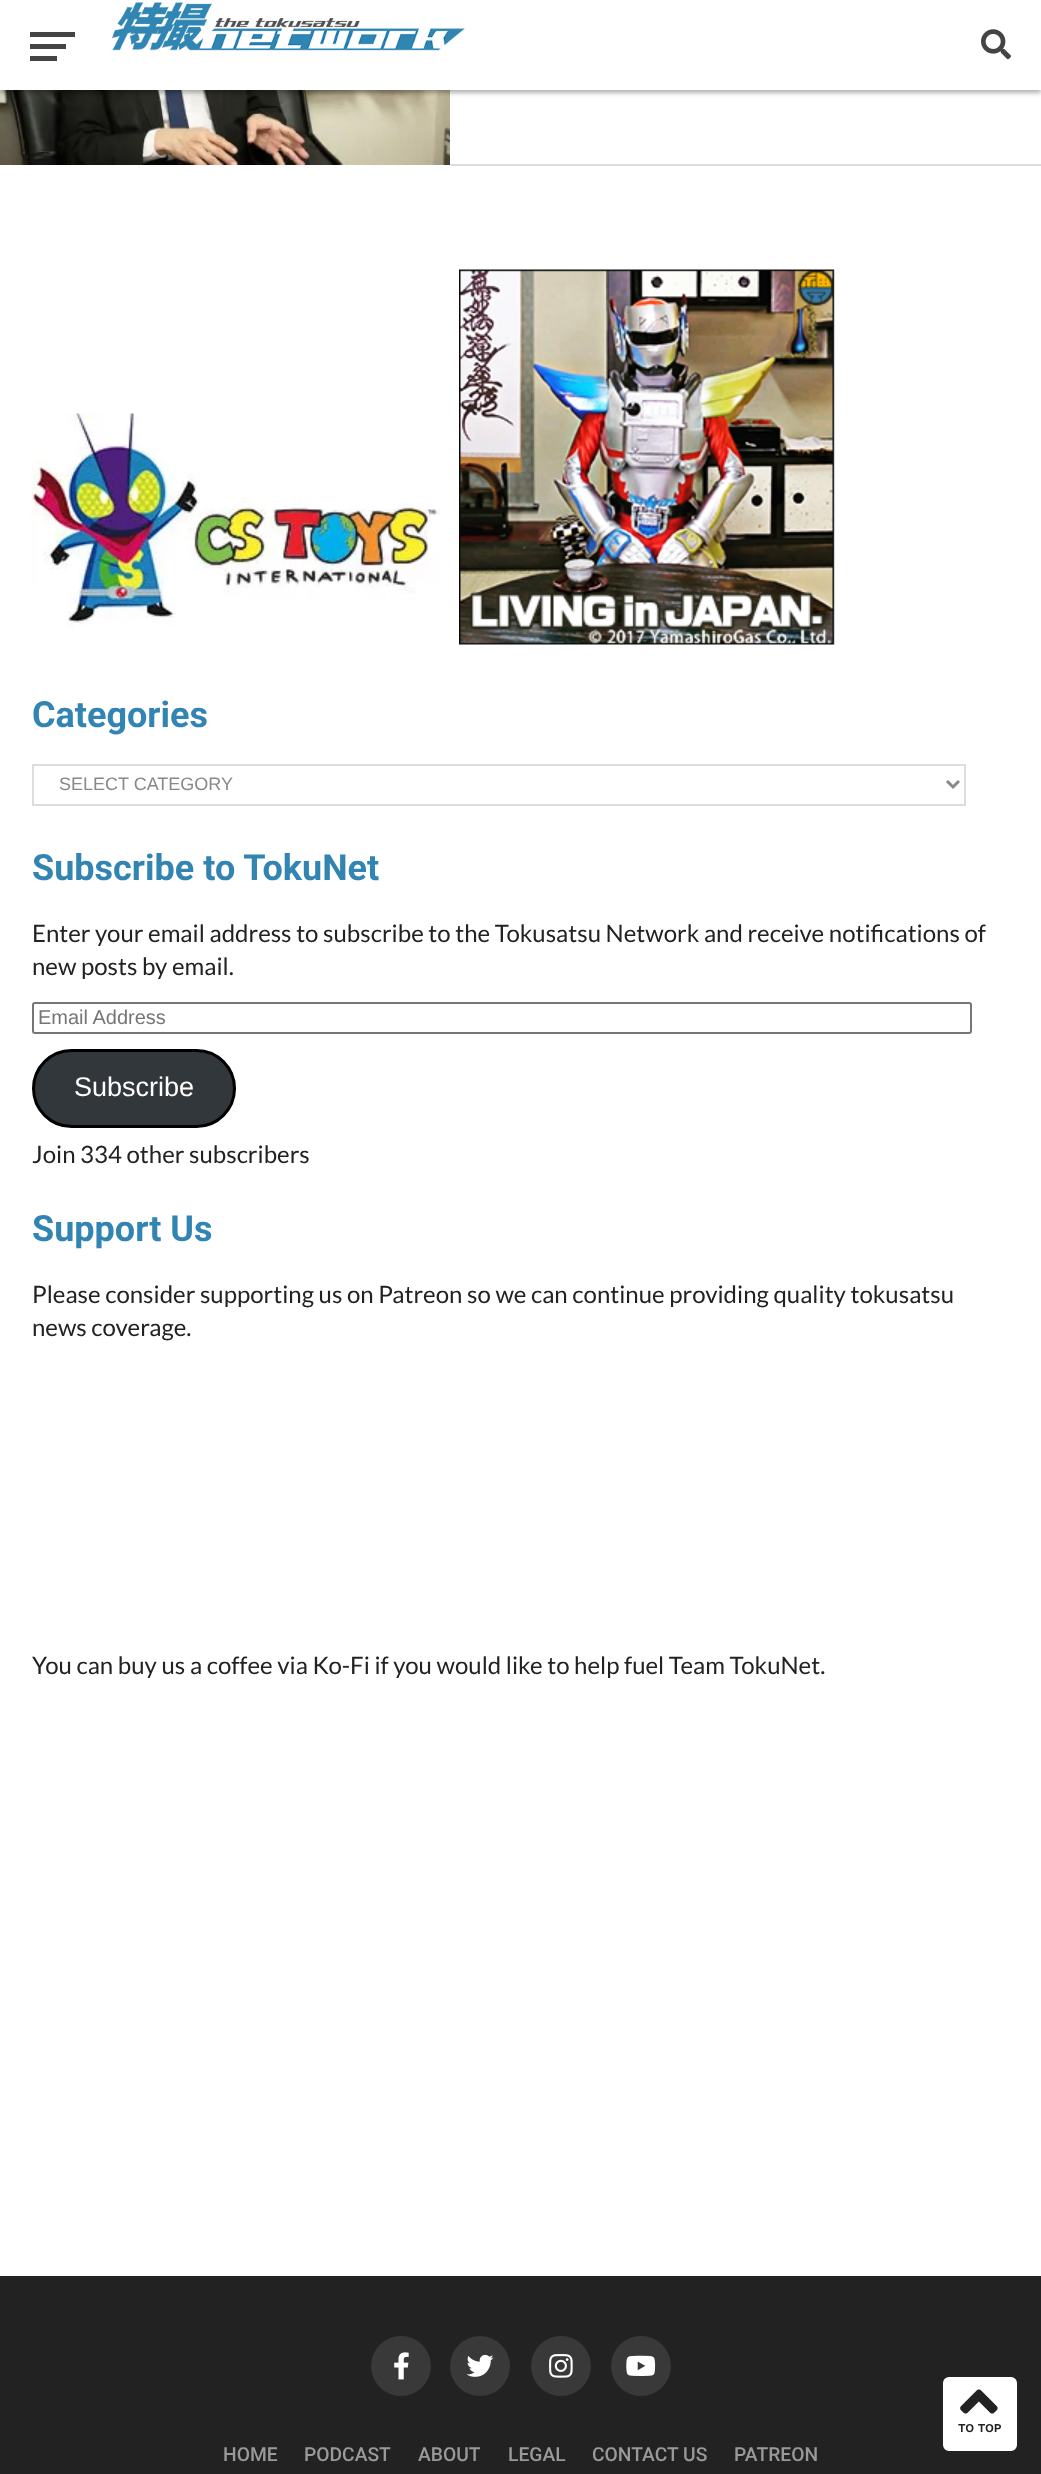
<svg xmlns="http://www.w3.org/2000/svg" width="1041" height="2474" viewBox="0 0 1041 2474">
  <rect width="100%" height="100%" fill="#fff"/>
  <image x="0" y="90" width="450" height="75" href="img/3.png"/>
  <path d="M0 3h1041v90H0z" fill="#0000004d" filter="blur(2px)"/>
  <path d="M0 0h1041v90H0z" fill="#fff"/>
  <path d="M30 32h45v5H30z" fill="#444"/>
  <path d="M30 44h36v5H30z" fill="#444"/>
  <path d="M30 56h27v5H30z" fill="#444"/>
  <image x="111" y="2" width="354" height="49" href="img/1.png"/>
  <image x="981" y="29" width="30" height="31" href="img/2.png"/>
  <path d="M450 164h591v2H450z" fill="#ddd"/>
  <image x="31" y="413" width="409" height="215" href="img/4.png"/>
  <image x="459" y="269" width="376" height="376" href="img/5.png"/>
  <path d="M33 765h932v40H33z" fill="none" stroke="#ddd" stroke-width="2"/>
  <path d="M947 781L953 787L959 781" fill="none" stroke="#888" stroke-width="3"/>
  <rect x="33" y="1003" width="938" height="30" rx="2" fill="none" stroke="#767676" stroke-width="2"/>
  <rect x="33.5" y="1050.5" width="201" height="76" rx="38" fill="#32373c" stroke="#000" stroke-width="3"/>
  <path d="M0 2276h1041v198H0z" fill="#222"/>
  <circle cx="401" cy="2366" r="30" fill="#393939"/>
  <image x="394" y="2352" width="15" height="28" href="img/6.png"/>
  <circle cx="480" cy="2366" r="30" fill="#393939"/>
  <image x="466" y="2354" width="28" height="23" href="img/7.png"/>
  <circle cx="561" cy="2366" r="30" fill="#393939"/>
  <image x="549" y="2354" width="24" height="24" href="img/8.png"/>
  <circle cx="641" cy="2366" r="30" fill="#393939"/>
  <image x="626" y="2355" width="30" height="21" href="img/9.png"/>
  <rect x="942" y="2376" width="76" height="76" rx="7" fill="#fff" stroke="#222" stroke-width="2"/>
  <image x="960" y="2389" width="38" height="25" href="img/10.png"/>
  <text x="32" y="727" font-family="Roboto" font-size="36" font-weight="bold" fill="#3285b3">Categories</text>
  <text x="59" y="790" font-family="Liberation Sans" font-size="18" fill="#888">SELECT CATEGORY</text>
  <text x="32" y="880" font-family="Roboto" font-size="36" font-weight="bold" fill="#3285b3">Subscribe to TokuNet</text>
  <g font-family="Lato" font-size="24" fill="#222">
    <text x="32" y="942">Enter your email address to subscribe to the Tokusatsu Network and receive notifications of</text>
    <text x="32" y="975">new posts by email.</text>
  </g>
  <text x="38" y="1024" font-family="Liberation Sans" font-size="20" fill="#757575">Email Address</text>
  <text x="74" y="1096" font-family="Liberation Sans" font-size="27" fill="#fff">Subscribe</text>
  <text x="32" y="1163" font-family="Lato" font-size="24" fill="#222">Join 334 other subscribers</text>
  <text x="32" y="1241" font-family="Roboto" font-size="36" font-weight="bold" fill="#3285b3">Support Us</text>
  <g font-family="Lato" font-size="24" fill="#222">
    <text x="32" y="1303">Please consider supporting us on Patreon so we can continue providing quality tokusatsu</text>
    <text x="32" y="1336">news coverage.</text>
    <text x="32" y="1674">You can buy us a coffee via Ko-Fi if you would like to help fuel Team TokuNet.</text>
  </g>
  <g font-family="Roboto" font-size="19.25" font-weight="500" fill="#999">
    <text x="223" y="2461">HOME</text>
    <text x="304" y="2461">PODCAST</text>
    <text x="418" y="2461">ABOUT</text>
    <text x="508" y="2461">LEGAL</text>
    <text x="592" y="2461">CONTACT US</text>
    <text x="734" y="2461">PATREON</text>
  </g>
  <text x="958" y="2432" font-family="Work Sans" font-size="12" font-weight="600" fill="#222">TO TOP</text>
</svg>
